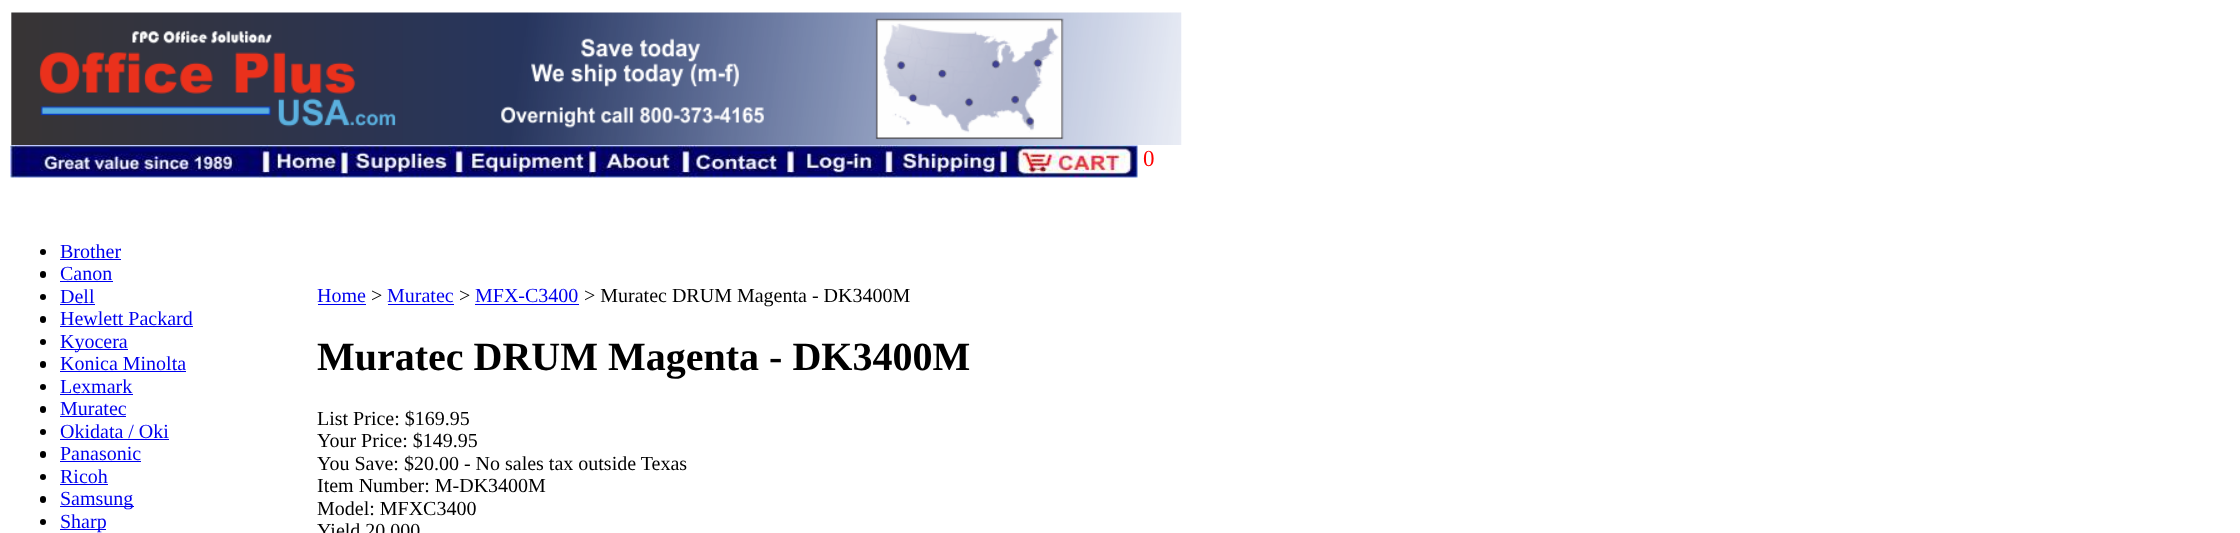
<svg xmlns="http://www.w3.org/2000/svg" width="2240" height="533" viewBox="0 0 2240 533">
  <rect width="100%" height="100%" fill="#fff"/>
  <image x="11" y="12" width="1171" height="133" href="img/1.png"/>
  <image x="10" y="145" width="1128" height="33" href="img/2.png"/>
  <circle cx="43" cy="252" r="3" fill="#000"/>
  <path d="M60 259h61v1H60z" fill="#00e"/>
  <rect x="40" y="271" width="6" height="7" rx="3" fill="#000"/>
  <path d="M60 281h53v1H60z" fill="#00e"/>
  <circle cx="43" cy="297" r="3" fill="#000"/>
  <path d="M60 304h35v1H60z" fill="#00e"/>
  <rect x="40" y="316" width="6" height="7" rx="3" fill="#000"/>
  <path d="M60 326h133v1H60z" fill="#00e"/>
  <circle cx="43" cy="342" r="3" fill="#000"/>
  <path d="M60 349h68v1H60z" fill="#00e"/>
  <rect x="40" y="361" width="6" height="7" rx="3" fill="#000"/>
  <path d="M60 371h126v1H60z" fill="#00e"/>
  <circle cx="43" cy="387" r="3" fill="#000"/>
  <path d="M60 394h73v1H60z" fill="#00e"/>
  <rect x="40" y="406" width="6" height="7" rx="3" fill="#000"/>
  <path d="M60 416h66v1H60z" fill="#00e"/>
  <circle cx="43" cy="432" r="3" fill="#000"/>
  <path d="M60 439h109v1H60z" fill="#00e"/>
  <rect x="40" y="451" width="6" height="7" rx="3" fill="#000"/>
  <path d="M60 461h81v1H60z" fill="#00e"/>
  <circle cx="43" cy="477" r="3" fill="#000"/>
  <path d="M60 484h48v1H60z" fill="#00e"/>
  <rect x="40" y="496" width="6" height="7" rx="3" fill="#000"/>
  <path d="M60 506h74v1H60z" fill="#00e"/>
  <circle cx="43" cy="522" r="3" fill="#000"/>
  <path d="M60 529h46v1H60z" fill="#00e"/>
  <path d="M318 304h48v1H318z" fill="#00e"/>
  <path d="M388 304h66v1H388z" fill="#00e"/>
  <path d="M475 304h104v1H475z" fill="#00e"/>
  <text x="1143" y="166" font-family="Liberation Serif" font-size="23" fill="#f00">0</text>
  <g font-family="Liberation Serif" font-size="20" fill="#00e">
    <text x="60" y="258">Brother</text>
    <text x="60" y="280">Canon</text>
    <text x="60" y="303">Dell</text>
    <text x="60" y="325">Hewlett Packard</text>
    <text x="60" y="348">Kyocera</text>
    <text x="60" y="370">Konica Minolta</text>
    <text x="60" y="393">Lexmark</text>
    <text x="60" y="415">Muratec</text>
    <text x="60" y="438">Okidata / Oki</text>
    <text x="60" y="460">Panasonic</text>
    <text x="60" y="483">Ricoh</text>
    <text x="60" y="505">Samsung</text>
    <text x="60" y="528">Sharp</text>
    <text x="317" y="302">Home</text>
  </g>
  <text x="371" y="302" font-family="Liberation Serif" font-size="20" fill="#000">&gt;</text>
  <text x="387" y="302" font-family="Liberation Serif" font-size="20" fill="#00e">Muratec</text>
  <text x="459" y="302" font-family="Liberation Serif" font-size="20" fill="#000">&gt;</text>
  <text x="475" y="302" font-family="Liberation Serif" font-size="20" fill="#00e">MFX-C3400</text>
  <text x="584" y="302" font-family="Liberation Serif" font-size="20" fill="#000">&gt; Muratec DRUM Magenta - DK3400M</text>
  <text x="317" y="370" font-family="Liberation Serif" font-size="40" font-weight="bold" fill="#000">Muratec DRUM Magenta - DK3400M</text>
  <g font-family="Liberation Serif" font-size="20" fill="#000">
    <text x="317" y="425">List Price: $169.95</text>
    <text x="317" y="447">Your Price: $149.95</text>
    <text x="317" y="470">You Save: $20.00 - No sales tax outside Texas</text>
    <text x="317" y="492">Item Number: M-DK3400M</text>
    <text x="317" y="515">Model: MFXC3400</text>
    <text x="317" y="537">Yield 20,000</text>
  </g>
</svg>
